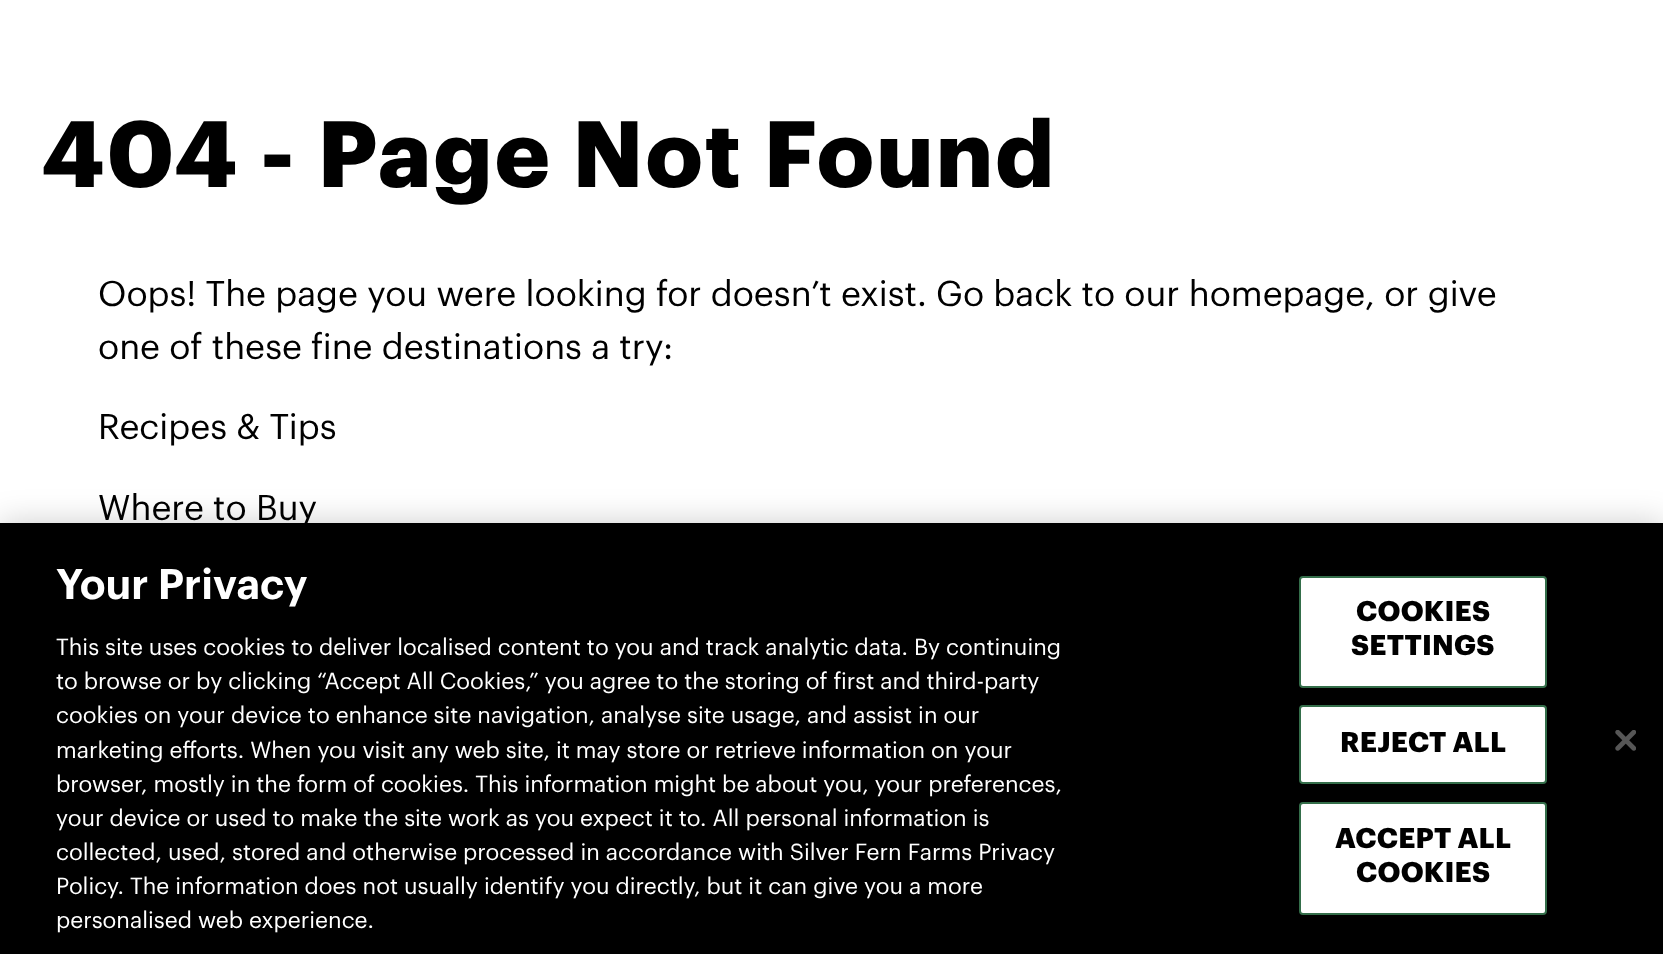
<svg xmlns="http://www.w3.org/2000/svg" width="1663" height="954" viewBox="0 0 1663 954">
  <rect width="100%" height="100%" fill="#fff"/>
  <path d="M0 523h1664v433H0z" fill="#00000033" filter="blur(16px)"/>
  <path d="M0 523h1663v431H0z" fill="#000"/>
  <rect x="1300" y="577" width="246" height="110" rx="3" fill="#fff" stroke="#346e4a" stroke-width="2"/>
  <rect x="1300" y="706" width="246" height="77" rx="3" fill="#fff" stroke="#346e4a" stroke-width="2"/>
  <rect x="1300" y="803" width="246" height="111" rx="3" fill="#fff" stroke="#346e4a" stroke-width="2"/>
  <image x="1615" y="730" width="21" height="21" href="img/1.png"/>
  <text x="42" y="187" font-family="Graphik" font-size="92" font-weight="bold" letter-spacing="2.25" fill="#000">404 - Page Not Found</text>
  <g font-family="Graphik" font-size="35" fill="#000">
    <text x="98" y="306">Oops! The page you were looking for doesn’t exist. Go back to our homepage, or give</text>
    <text x="98" y="359">one of these fine destinations a try:</text>
    <text x="98" y="439">Recipes &amp; Tips</text>
    <text x="98" y="520">Where to Buy</text>
  </g>
  <text x="56" y="599" font-family="Graphik" font-size="42" font-weight="600" fill="#fff">Your Privacy</text>
  <g font-family="Graphik" font-size="22.75" fill="#fff">
    <text x="56" y="655">This site uses cookies to deliver localised content to you and track analytic data. By continuing</text>
    <text x="56" y="689">to browse or by clicking “Accept All Cookies,” you agree to the storing of first and third-party</text>
    <text x="56" y="723">cookies on your device to enhance site navigation, analyse site usage, and assist in our</text>
    <text x="56" y="758">marketing efforts. When you visit any web site, it may store or retrieve information on your</text>
    <text x="56" y="792">browser, mostly in the form of cookies. This information might be about you, your preferences,</text>
    <text x="56" y="826">your device or used to make the site work as you expect it to. All personal information is</text>
    <text x="56" y="860">collected, used, stored and otherwise processed in accordance with Silver Fern Farms Privacy</text>
    <text x="56" y="894">Policy. The information does not usually identify you directly, but it can give you a more</text>
    <text x="56" y="928">personalised web experience.</text>
  </g>
  <g font-family="Graphik" font-size="28" font-weight="bold" letter-spacing="0.25" fill="#000">
    <text x="1356" y="621">COOKIES</text>
    <text x="1351" y="655">SETTINGS</text>
    <text x="1340" y="752">REJECT ALL</text>
    <text x="1335" y="848">ACCEPT ALL</text>
    <text x="1356" y="882">COOKIES</text>
  </g>
</svg>
